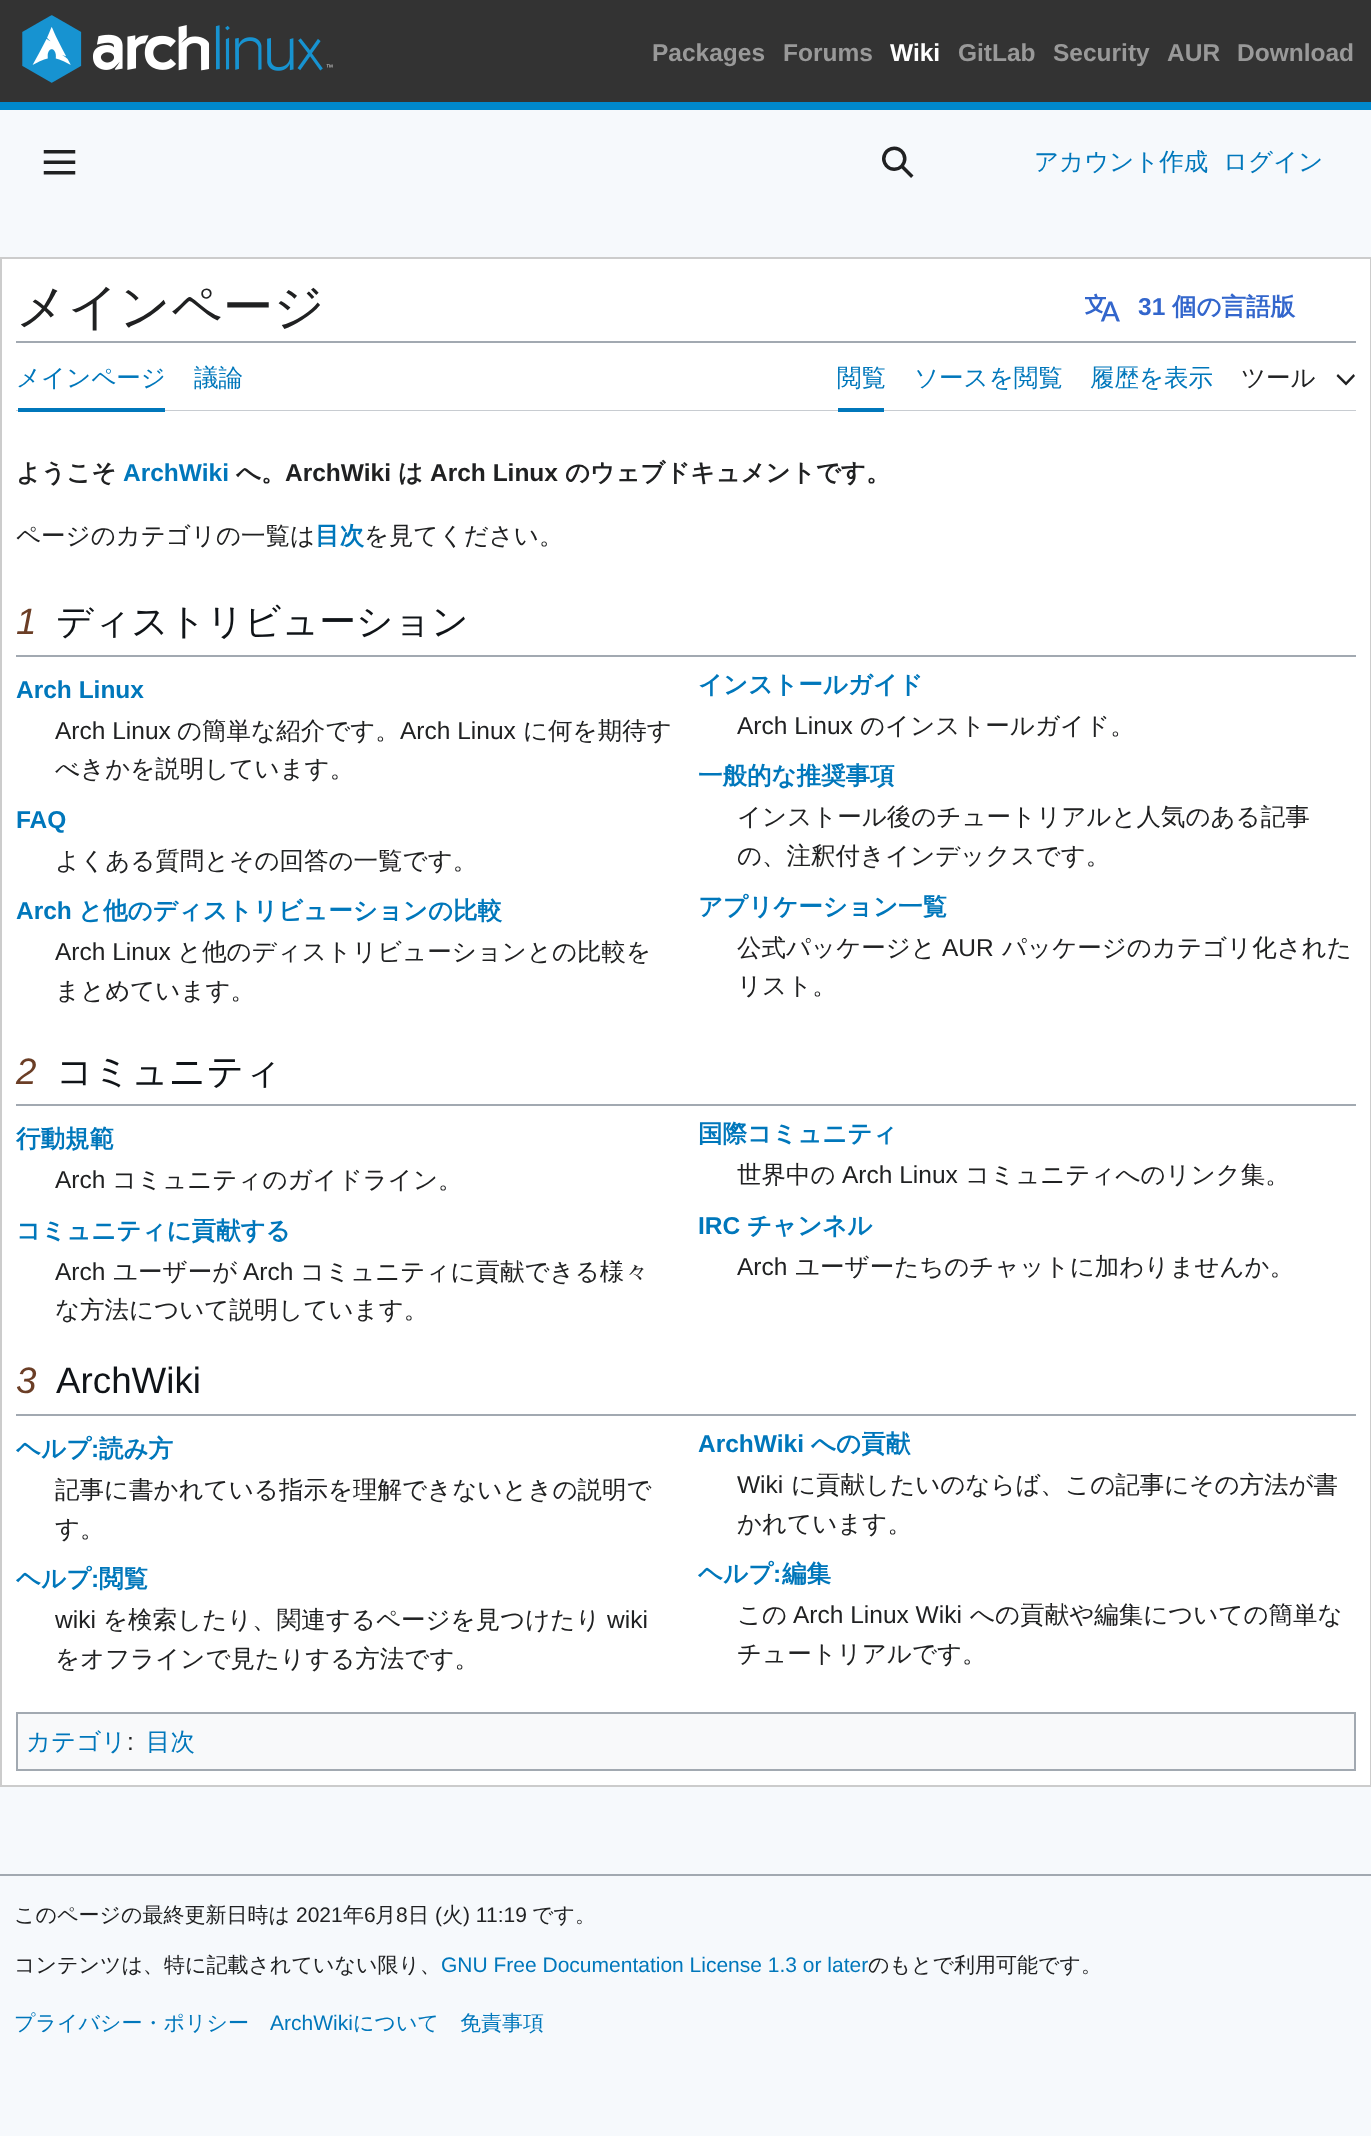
<svg xmlns="http://www.w3.org/2000/svg" width="1371" height="2136" viewBox="0 0 1371 2136">
  <rect width="100%" height="100%" fill="#f6f9fc"/>
  <path d="M0 0h1371v102H0z" fill="#333"/>
  <path d="M0 102h1371v8H0z" fill="#08c"/>
  <image x="22" y="15" width="311" height="68" href="img/1.png"/>
  <image x="43" y="150" width="33" height="25" href="img/2.png"/>
  <image x="882" y="146" width="32" height="32" href="img/3.png"/>
  <path d="M1 258h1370v1528H1z" fill="#fff" stroke="#ccc" stroke-width="2"/>
  <image x="1085" y="293" width="35" height="29" href="img/4.png"/>
  <path d="M16 341h1340v2H16z" fill="#a2a9b1"/>
  <path d="M16 410h1340v1H16z" fill="#c8ccd1"/>
  <path d="M18 408h147v4H18z" fill="#07b"/>
  <path d="M838 408h46v4H838z" fill="#07b"/>
  <path d="M1353.5 374L1346 382L1338 374L1336.5 376L1346 385.5L1355 376Z" fill="#202122"/>
  <path d="M16 655h1340v2H16z" fill="#a2a9b1"/>
  <path d="M16 1104h1340v2H16z" fill="#a2a9b1"/>
  <path d="M16 1414h1340v2H16z" fill="#a2a9b1"/>
  <path d="M17 1713h1338v57H17z" fill="#f8f9fa" stroke="#a2a9b1" stroke-width="2"/>
  <path d="M0 1874h1371v2H0z" fill="#a2a9b1"/>
  <g font-family="Liberation Sans" font-size="24.5" font-weight="bold" fill="#999">
    <text x="652" y="61">Packages</text>
    <text x="783" y="61">Forums</text>
  </g>
  <text x="890" y="61" font-family="Liberation Sans" font-size="24.5" font-weight="bold" fill="#fff">Wiki</text>
  <g font-family="Liberation Sans" font-size="24.5" font-weight="bold" fill="#999">
    <text x="958" y="61">GitLab</text>
    <text x="1053" y="61">Security</text>
    <text x="1167" y="61">AUR</text>
    <text x="1237" y="61">Download</text>
  </g>
  <g font-family="WenQuanYi Zen Hei" font-size="24.5" font-weight="500" fill="#07b">
    <text x="1034" y="170">アカウント作成</text>
    <text x="1223" y="170">ログイン</text>
  </g>
  <text x="16" y="324" font-family="WenQuanYi Zen Hei" font-size="50.5" font-weight="500" fill="#202122">メインページ</text>
  <text x="1138" y="315" font-family="Liberation Sans" font-size="24.5" font-weight="bold" fill="#36c">31</text>
  <text x="1172" y="315" font-family="WenQuanYi Zen Hei" font-size="24.5" font-weight="bold" fill="#36c">個の言語版</text>
  <g font-family="WenQuanYi Zen Hei" font-size="24.5" font-weight="500" fill="#07b">
    <text x="16" y="386">メインページ</text>
    <text x="194" y="386">議論</text>
    <text x="837" y="386">閲覧</text>
    <text x="914" y="386">ソースを閲覧</text>
    <text x="1090" y="386">履歴を表示</text>
  </g>
  <text x="1241" y="386" font-family="WenQuanYi Zen Hei" font-size="24.5" font-weight="500" fill="#202122">ツール</text>
  <text x="16" y="481" font-family="WenQuanYi Zen Hei" font-size="24.5" font-weight="bold" fill="#202122">ようこそ</text>
  <text x="123" y="481" font-family="Liberation Sans" font-size="24.5" font-weight="bold" fill="#07b">ArchWiki</text>
  <text x="236" y="481" font-family="WenQuanYi Zen Hei" font-size="24.5" font-weight="bold" fill="#202122">へ。</text>
  <text x="285" y="481" font-family="Liberation Sans" font-size="24.5" font-weight="bold" fill="#202122">ArchWiki</text>
  <text x="398" y="481" font-family="WenQuanYi Zen Hei" font-size="24.5" font-weight="bold" fill="#202122">は</text>
  <text x="430" y="481" font-family="Liberation Sans" font-size="24.5" font-weight="bold" fill="#202122">Arch Linux</text>
  <text x="565" y="481" font-family="WenQuanYi Zen Hei" font-size="24.5" font-weight="bold" fill="#202122">のウェブドキュメントです。</text>
  <text x="16" y="544" font-family="WenQuanYi Zen Hei" font-size="24.5" font-weight="500" fill="#202122">ページのカテゴリの一覧は</text>
  <text x="315" y="544" font-family="WenQuanYi Zen Hei" font-size="24.5" font-weight="bold" fill="#07b">目次</text>
  <text x="364" y="544" font-family="WenQuanYi Zen Hei" font-size="24.5" font-weight="500" fill="#202122">を見てください。</text>
  <text x="16" y="634" font-family="Liberation Sans" font-size="36.75" font-style="italic" fill="#6b3e26">1</text>
  <text x="56" y="634" font-family="WenQuanYi Zen Hei" font-size="36.75" font-weight="500" fill="#101418">ディストリビューション</text>
  <text x="16" y="698" font-family="Liberation Sans" font-size="24.5" font-weight="bold" fill="#07b">Arch Linux</text>
  <text x="55" y="739" font-family="Liberation Sans" font-size="24.5" fill="#202122">Arch Linux</text>
  <text x="177" y="739" font-family="WenQuanYi Zen Hei" font-size="24.5" font-weight="500" fill="#202122">の簡単な紹介です。</text>
  <text x="400" y="739" font-family="Liberation Sans" font-size="24.5" fill="#202122">Arch Linux</text>
  <g font-family="WenQuanYi Zen Hei" font-size="24.5" font-weight="500" fill="#202122">
    <text x="523" y="739">に何を期待す</text>
    <text x="55" y="777">べきかを説明しています。</text>
  </g>
  <text x="698" y="693" font-family="WenQuanYi Zen Hei" font-size="24.5" font-weight="bold" fill="#07b">インストールガイド</text>
  <text x="737" y="734" font-family="Liberation Sans" font-size="24.5" fill="#202122">Arch Linux</text>
  <text x="860" y="734" font-family="WenQuanYi Zen Hei" font-size="24.5" font-weight="500" fill="#202122">のインストールガイド。</text>
  <text x="16" y="828" font-family="Liberation Sans" font-size="24.5" font-weight="bold" fill="#07b">FAQ</text>
  <text x="55" y="869" font-family="WenQuanYi Zen Hei" font-size="24.5" font-weight="500" fill="#202122">よくある質問とその回答の一覧です。</text>
  <text x="698" y="784" font-family="WenQuanYi Zen Hei" font-size="24.5" font-weight="bold" fill="#07b">一般的な推奨事項</text>
  <g font-family="WenQuanYi Zen Hei" font-size="24.5" font-weight="500" fill="#202122">
    <text x="737" y="825">インストール後のチュートリアルと人気のある記事</text>
    <text x="737" y="864">の、注釈付きインデックスです。</text>
  </g>
  <text x="16" y="919" font-family="Liberation Sans" font-size="24.5" font-weight="bold" fill="#07b">Arch</text>
  <text x="78" y="919" font-family="WenQuanYi Zen Hei" font-size="24.5" font-weight="bold" fill="#07b">と他のディストリビューションの比較</text>
  <text x="55" y="960" font-family="Liberation Sans" font-size="24.5" fill="#202122">Arch Linux</text>
  <g font-family="WenQuanYi Zen Hei" font-size="24.5" font-weight="500" fill="#202122">
    <text x="177" y="960">と他のディストリビューションとの比較を</text>
    <text x="55" y="999">まとめています。</text>
  </g>
  <text x="698" y="915" font-family="WenQuanYi Zen Hei" font-size="24.5" font-weight="bold" fill="#07b">アプリケーション一覧</text>
  <text x="737" y="956" font-family="WenQuanYi Zen Hei" font-size="24.5" font-weight="500" fill="#202122">公式パッケージと</text>
  <text x="942" y="956" font-family="Liberation Sans" font-size="24.5" fill="#202122">AUR</text>
  <g font-family="WenQuanYi Zen Hei" font-size="24.5" font-weight="500" fill="#202122">
    <text x="1002" y="956">パッケージのカテゴリ化された</text>
    <text x="737" y="994">リスト。</text>
  </g>
  <text x="16" y="1084" font-family="Liberation Sans" font-size="36.75" font-style="italic" fill="#6b3e26">2</text>
  <text x="56" y="1084" font-family="WenQuanYi Zen Hei" font-size="36.75" font-weight="500" fill="#101418">コミュニティ</text>
  <text x="16" y="1147" font-family="WenQuanYi Zen Hei" font-size="24.5" font-weight="bold" fill="#07b">行動規範</text>
  <text x="55" y="1188" font-family="Liberation Sans" font-size="24.5" fill="#202122">Arch</text>
  <text x="112" y="1188" font-family="WenQuanYi Zen Hei" font-size="24.5" font-weight="500" fill="#202122">コミュニティのガイドライン。</text>
  <text x="698" y="1142" font-family="WenQuanYi Zen Hei" font-size="24.5" font-weight="bold" fill="#07b">国際コミュニティ</text>
  <text x="737" y="1183" font-family="WenQuanYi Zen Hei" font-size="24.5" font-weight="500" fill="#202122">世界中の</text>
  <text x="842" y="1183" font-family="Liberation Sans" font-size="24.5" fill="#202122">Arch Linux</text>
  <text x="965" y="1183" font-family="WenQuanYi Zen Hei" font-size="24.5" font-weight="500" fill="#202122">コミュニティへのリンク集。</text>
  <text x="16" y="1239" font-family="WenQuanYi Zen Hei" font-size="24.5" font-weight="bold" fill="#07b">コミュニティに貢献する</text>
  <text x="55" y="1280" font-family="Liberation Sans" font-size="24.5" fill="#202122">Arch</text>
  <text x="113" y="1280" font-family="WenQuanYi Zen Hei" font-size="24.5" font-weight="500" fill="#202122">ユーザーが</text>
  <text x="243" y="1280" font-family="Liberation Sans" font-size="24.5" fill="#202122">Arch</text>
  <g font-family="WenQuanYi Zen Hei" font-size="24.5" font-weight="500" fill="#202122">
    <text x="300" y="1280">コミュニティに貢献できる様々</text>
    <text x="55" y="1318">な方法について説明しています。</text>
  </g>
  <text x="698" y="1234" font-family="Liberation Sans" font-size="24.5" font-weight="bold" fill="#07b">IRC</text>
  <text x="747" y="1234" font-family="WenQuanYi Zen Hei" font-size="24.5" font-weight="bold" fill="#07b">チャンネル</text>
  <text x="737" y="1275" font-family="Liberation Sans" font-size="24.5" fill="#202122">Arch</text>
  <text x="795" y="1275" font-family="WenQuanYi Zen Hei" font-size="24.5" font-weight="500" fill="#202122">ユーザーたちのチャットに加わりませんか。</text>
  <text x="16" y="1393" font-family="Liberation Sans" font-size="36.75" font-style="italic" fill="#6b3e26">3</text>
  <text x="56" y="1393" font-family="Liberation Sans" font-size="36.75" fill="#101418">ArchWiki</text>
  <text x="16" y="1457" font-family="WenQuanYi Zen Hei" font-size="24.5" font-weight="bold" fill="#07b">ヘルプ</text>
  <text x="91" y="1457" font-family="Liberation Sans" font-size="24.5" font-weight="bold" fill="#07b">:</text>
  <text x="99" y="1457" font-family="WenQuanYi Zen Hei" font-size="24.5" font-weight="bold" fill="#07b">読み方</text>
  <g font-family="WenQuanYi Zen Hei" font-size="24.5" font-weight="500" fill="#202122">
    <text x="55" y="1498">記事に書かれている指示を理解できないときの説明で</text>
    <text x="55" y="1537">す。</text>
  </g>
  <text x="698" y="1452" font-family="Liberation Sans" font-size="24.5" font-weight="bold" fill="#07b">ArchWiki</text>
  <text x="811" y="1452" font-family="WenQuanYi Zen Hei" font-size="24.5" font-weight="bold" fill="#07b">への貢献</text>
  <text x="737" y="1493" font-family="Liberation Sans" font-size="24.5" fill="#202122">Wiki</text>
  <g font-family="WenQuanYi Zen Hei" font-size="24.5" font-weight="500" fill="#202122">
    <text x="791" y="1493">に貢献したいのならば、この記事にその方法が書</text>
    <text x="737" y="1532">かれています。</text>
  </g>
  <text x="16" y="1587" font-family="WenQuanYi Zen Hei" font-size="24.5" font-weight="bold" fill="#07b">ヘルプ</text>
  <text x="91" y="1587" font-family="Liberation Sans" font-size="24.5" font-weight="bold" fill="#07b">:</text>
  <text x="99" y="1587" font-family="WenQuanYi Zen Hei" font-size="24.5" font-weight="bold" fill="#07b">閲覧</text>
  <text x="55" y="1628" font-family="Liberation Sans" font-size="24.5" fill="#202122">wiki</text>
  <text x="103" y="1628" font-family="WenQuanYi Zen Hei" font-size="24.5" font-weight="500" fill="#202122">を検索したり、関連するページを見つけたり</text>
  <text x="607" y="1628" font-family="Liberation Sans" font-size="24.5" fill="#202122">wiki</text>
  <text x="55" y="1667" font-family="WenQuanYi Zen Hei" font-size="24.5" font-weight="500" fill="#202122">をオフラインで見たりする方法です。</text>
  <text x="698" y="1582" font-family="WenQuanYi Zen Hei" font-size="24.5" font-weight="bold" fill="#07b">ヘルプ</text>
  <text x="773" y="1582" font-family="Liberation Sans" font-size="24.5" font-weight="bold" fill="#07b">:</text>
  <text x="782" y="1582" font-family="WenQuanYi Zen Hei" font-size="24.5" font-weight="bold" fill="#07b">編集</text>
  <text x="737" y="1623" font-family="WenQuanYi Zen Hei" font-size="24.5" font-weight="500" fill="#202122">この</text>
  <text x="793" y="1623" font-family="Liberation Sans" font-size="24.5" fill="#202122">Arch Linux Wiki</text>
  <g font-family="WenQuanYi Zen Hei" font-size="24.5" font-weight="500" fill="#202122">
    <text x="970" y="1623">への貢献や編集についての簡単な</text>
    <text x="737" y="1662">チュートリアルです。</text>
  </g>
  <text x="26" y="1750" font-family="WenQuanYi Zen Hei" font-size="24.5" font-weight="500" fill="#07b">カテゴリ</text>
  <text x="127" y="1750" font-family="Liberation Sans" font-size="24.5" fill="#202122">:</text>
  <text x="146" y="1750" font-family="WenQuanYi Zen Hei" font-size="24.5" font-weight="500" fill="#07b">目次</text>
  <text x="14" y="1922" font-family="WenQuanYi Zen Hei" font-size="21" font-weight="500" fill="#202122">このページの最終更新日時は</text>
  <text x="296" y="1922" font-family="Liberation Sans" font-size="21" fill="#202122">2021</text>
  <text x="343" y="1922" font-family="WenQuanYi Zen Hei" font-size="21" font-weight="500" fill="#202122">年</text>
  <text x="364" y="1922" font-family="Liberation Sans" font-size="21" fill="#202122">6</text>
  <text x="375" y="1922" font-family="WenQuanYi Zen Hei" font-size="21" font-weight="500" fill="#202122">月</text>
  <text x="396" y="1922" font-family="Liberation Sans" font-size="21" fill="#202122">8</text>
  <text x="408" y="1922" font-family="WenQuanYi Zen Hei" font-size="21" font-weight="500" fill="#202122">日</text>
  <text x="435" y="1922" font-family="Liberation Sans" font-size="21" fill="#202122">(</text>
  <text x="442" y="1922" font-family="WenQuanYi Zen Hei" font-size="21" font-weight="500" fill="#202122">火</text>
  <text x="463" y="1922" font-family="Liberation Sans" font-size="21" fill="#202122">) 11:19</text>
  <g font-family="WenQuanYi Zen Hei" font-size="21" font-weight="500" fill="#202122">
    <text x="532" y="1922">です。</text>
    <text x="14" y="1972">コンテンツは、特に記載されていない限り、</text>
  </g>
  <text x="441" y="1972" font-family="Liberation Sans" font-size="21" fill="#07b">GNU Free Documentation License 1.3 or later</text>
  <text x="868" y="1972" font-family="WenQuanYi Zen Hei" font-size="21" font-weight="500" fill="#202122">のもとで利用可能です。</text>
  <text x="14" y="2030" font-family="WenQuanYi Zen Hei" font-size="21" font-weight="500" fill="#07b">プライバシー・ポリシー</text>
  <text x="270" y="2030" font-family="Liberation Sans" font-size="21" fill="#07b">ArchWiki</text>
  <g font-family="WenQuanYi Zen Hei" font-size="21" font-weight="500" fill="#07b">
    <text x="353" y="2030">について</text>
    <text x="460" y="2030">免責事項</text>
  </g>
</svg>
